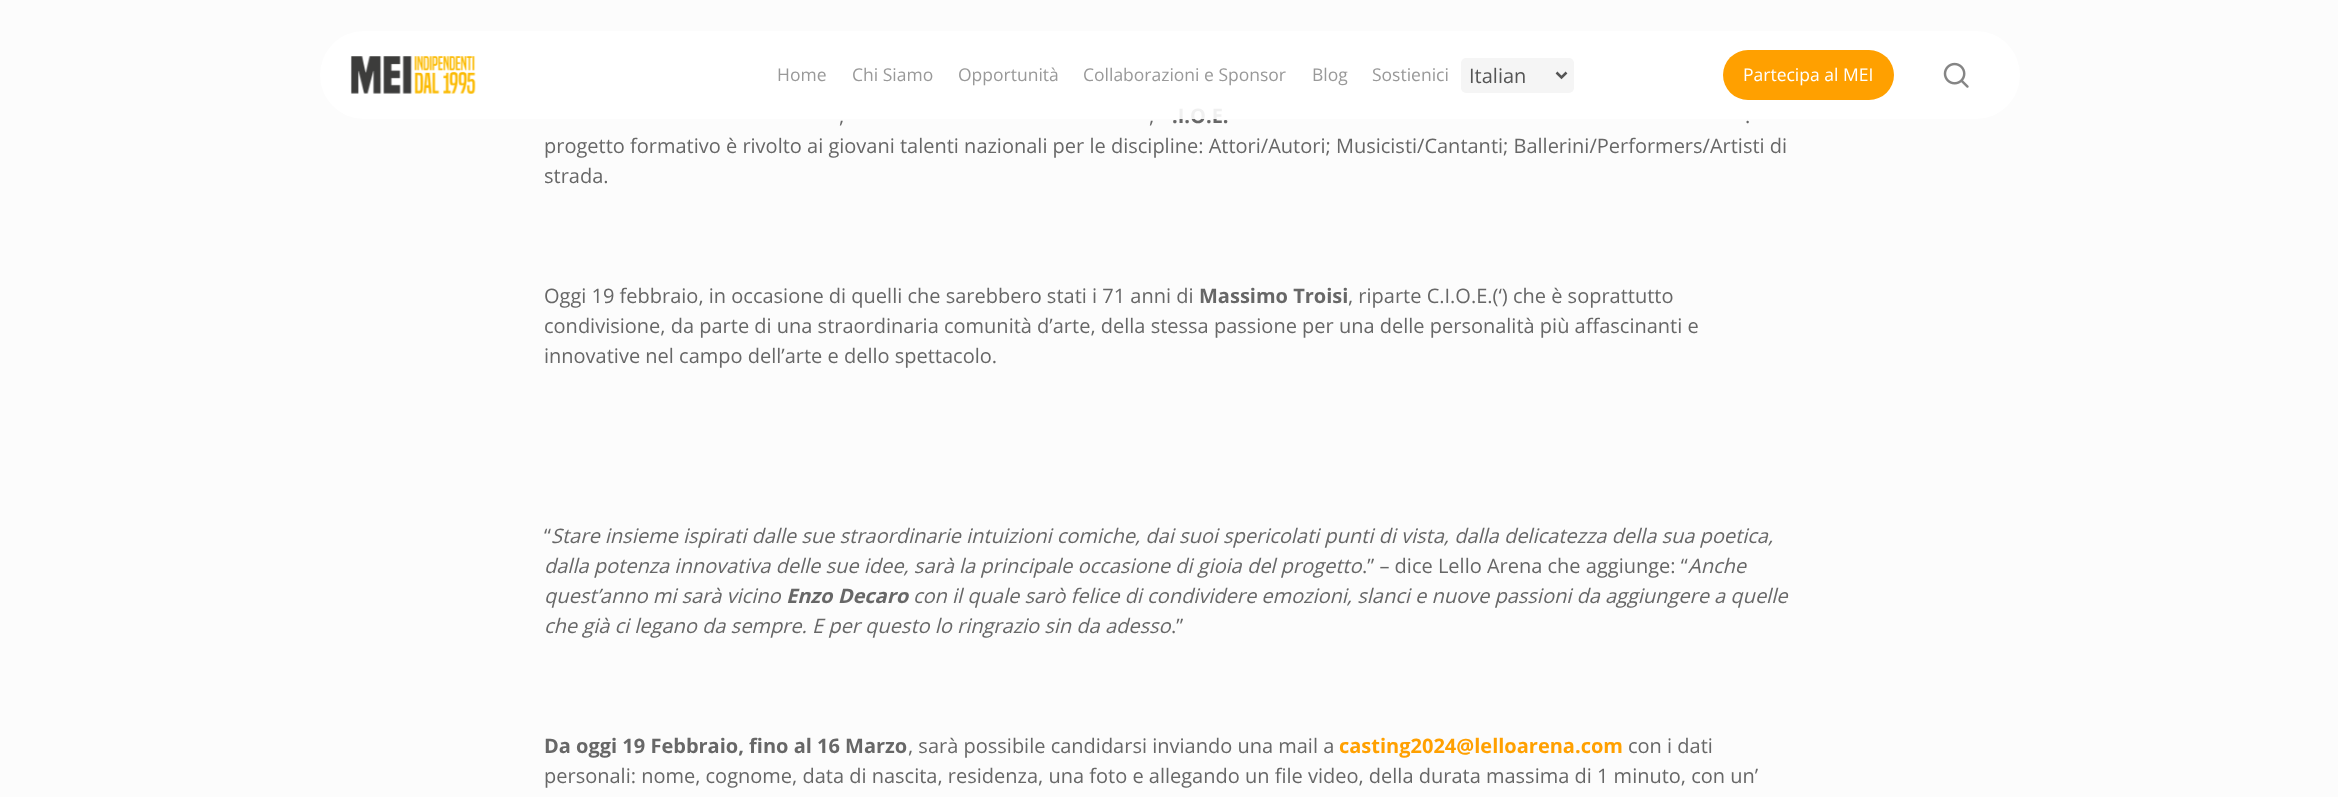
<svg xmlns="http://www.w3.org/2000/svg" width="2338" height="797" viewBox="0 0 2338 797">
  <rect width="100%" height="100%" fill="#fcfcfc"/>
  <g font-family="Open Sans" font-size="20" fill="#676767">
    <text x="839" y="123">,</text>
    <text x="1149" y="123">,</text>
  </g>
  <text x="1172" y="123" font-family="Open Sans" font-size="20" font-weight="bold" fill="#676767">.I.O.E.</text>
  <rect x="320" y="31" width="1700" height="88" rx="44" fill="#ffffffe6"/>
  <image x="350" y="56" width="126" height="38" href="img/1.png"/>
  <image x="1943" y="62" width="26" height="26" href="img/2.png"/>
  <rect x="1723" y="50" width="171" height="50" rx="25" fill="#ffa000"/>
  <text x="1743" y="81" font-family="Open Sans" font-size="17.5" fill="#fff">Partecipa al MEI</text>
  <rect x="1461" y="58" width="113" height="35" rx="5" fill="#f5f5f5"/>
  <text x="1469" y="83" font-family="Open Sans" font-size="20" fill="#555">Italian</text>
  <path d="M1556.5 72.5L1561.5 77.5L1566.5 72.5" fill="none" stroke="#555" stroke-width="2.5"/>
  <g font-family="Open Sans" font-size="17.5" fill="#999">
    <text x="1372" y="81">Sostienici</text>
    <text x="1312" y="81">Blog</text>
    <text x="1083" y="81">Collaborazioni e Sponsor</text>
    <text x="958" y="81">Opportunità</text>
    <text x="852" y="81">Chi Siamo</text>
    <text x="777" y="81">Home</text>
  </g>
  <g font-family="Open Sans" font-size="20" fill="#676767">
    <text x="1745" y="123">.</text>
    <text x="544" y="153">progetto formativo è rivolto ai giovani talenti nazionali per le discipline: Attori/Autori; Musicisti/Cantanti; Ballerini/Performers/Artisti di</text>
    <text x="544" y="183">strada.</text>
    <text x="544" y="303">Oggi 19 febbraio, in occasione di quelli che sarebbero stati i 71 anni di</text>
  </g>
  <text x="1199" y="303" font-family="Open Sans" font-size="20" font-weight="bold" fill="#676767">Massimo Troisi</text>
  <g font-family="Open Sans" font-size="20" fill="#676767">
    <text x="1348" y="303">, riparte C.I.O.E.(‘) che è soprattutto</text>
    <text x="544" y="333">condivisione, da parte di una straordinaria comunità d’arte, della stessa passione per una delle personalità più affascinanti e</text>
    <text x="544" y="363">innovative nel campo dell’arte e dello spettacolo.</text>
    <text x="544" y="543">“</text>
  </g>
  <g font-family="Open Sans" font-size="20" font-style="italic" fill="#676767">
    <text x="551" y="543">Stare insieme ispirati dalle sue straordinarie intuizioni comiche, dai suoi spericolati punti di vista, dalla delicatezza della sua poetica,</text>
    <text x="544" y="573">dalla potenza innovativa delle sue idee, sarà la principale occasione di gioia del progetto</text>
  </g>
  <text x="1362" y="573" font-family="Open Sans" font-size="20" fill="#676767">.” – dice Lello Arena che aggiunge: “</text>
  <g font-family="Open Sans" font-size="20" font-style="italic" fill="#676767">
    <text x="1688" y="573">Anche</text>
    <text x="544" y="603">quest’anno mi sarà vicino</text>
  </g>
  <text x="786" y="603" font-family="Open Sans" font-size="20" font-weight="bold" font-style="italic" fill="#676767">Enzo Decaro</text>
  <g font-family="Open Sans" font-size="20" font-style="italic" fill="#676767">
    <text x="913" y="603">con il quale sarò felice di condividere emozioni, slanci e nuove passioni da aggiungere a quelle</text>
    <text x="544" y="633">che già ci legano da sempre. E per questo lo ringrazio sin da adesso</text>
  </g>
  <text x="1171" y="633" font-family="Open Sans" font-size="20" fill="#676767">.”</text>
  <text x="544" y="753" font-family="Open Sans" font-size="20" font-weight="bold" fill="#676767">Da oggi 19 Febbraio, fino al 16 Marzo</text>
  <text x="908" y="753" font-family="Open Sans" font-size="20" fill="#676767">, sarà possibile candidarsi inviando una mail a</text>
  <text x="1339" y="753" font-family="Open Sans" font-size="20" font-weight="bold" fill="#ffa000">casting2024@lelloarena.com</text>
  <g font-family="Open Sans" font-size="20" fill="#676767">
    <text x="1628" y="753">con i dati</text>
    <text x="544" y="783">personali: nome, cognome, data di nascita, residenza, una foto e allegando un file video, della durata massima di 1 minuto, con un’</text>
  </g>
</svg>
